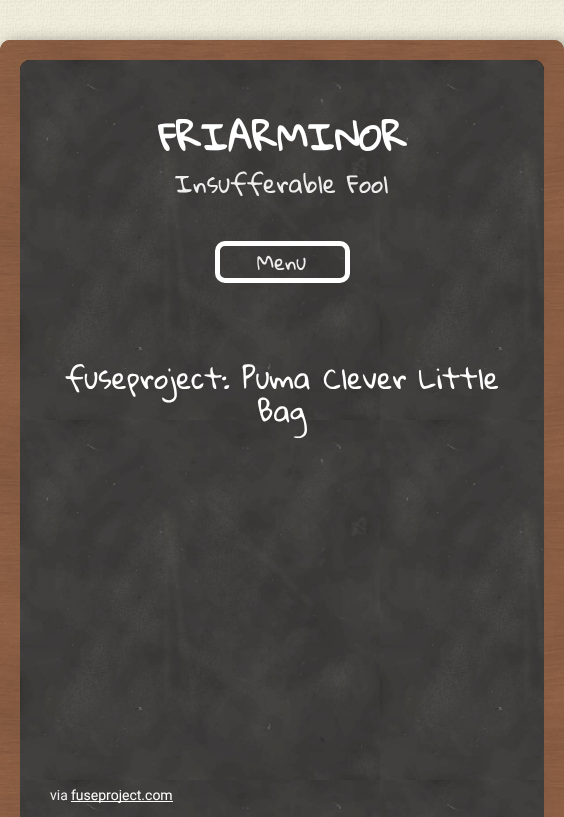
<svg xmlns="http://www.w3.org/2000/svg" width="564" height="817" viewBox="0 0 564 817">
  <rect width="100%" height="100%" fill="#f1eedc"/>
  <image x="0" y="0" width="564" height="50" href="img/1.png"/>
  <rect x="5" y="42" width="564" height="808" rx="10" fill="#00000066" filter="blur(7.5px)"/>
  <rect y="40" width="564" height="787" rx="10" fill="#855e42"/>
  <image x="0" y="40" width="564" height="777" href="img/2.png"/>
  <rect x="20" y="60" width="524" height="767" rx="10" fill="#000"/>
  <image x="20" y="60" width="524" height="757" href="img/3.png"/>
  <rect x="217.5" y="243.5" width="130" height="37" rx="7.5" fill="none" stroke="#fff" stroke-width="5"/>
  <path d="M71 801h102v1H71z" fill="#fff"/>
  <text x="158" y="151" font-family="Gloria Hallelujah" font-size="36" font-weight="bold" fill="#fff">FRIARMINOR</text>
  <text x="175" y="193" font-family="Gloria Hallelujah" font-size="24" fill="#eee">Insufferable Fool</text>
  <text x="257" y="270" font-family="Gloria Hallelujah" font-size="20" fill="#eee">Menu</text>
  <g font-family="Gloria Hallelujah" font-size="28" fill="#fff">
    <text x="65" y="389">fuseproject: Puma Clever Little</text>
    <text x="257" y="422">Bag</text>
  </g>
  <text x="50" y="800" font-family="Roboto" font-size="14" fill="#eee">via</text>
  <text x="71" y="800" font-family="Roboto" font-size="14" fill="#fff">fuseproject.com</text>
</svg>
